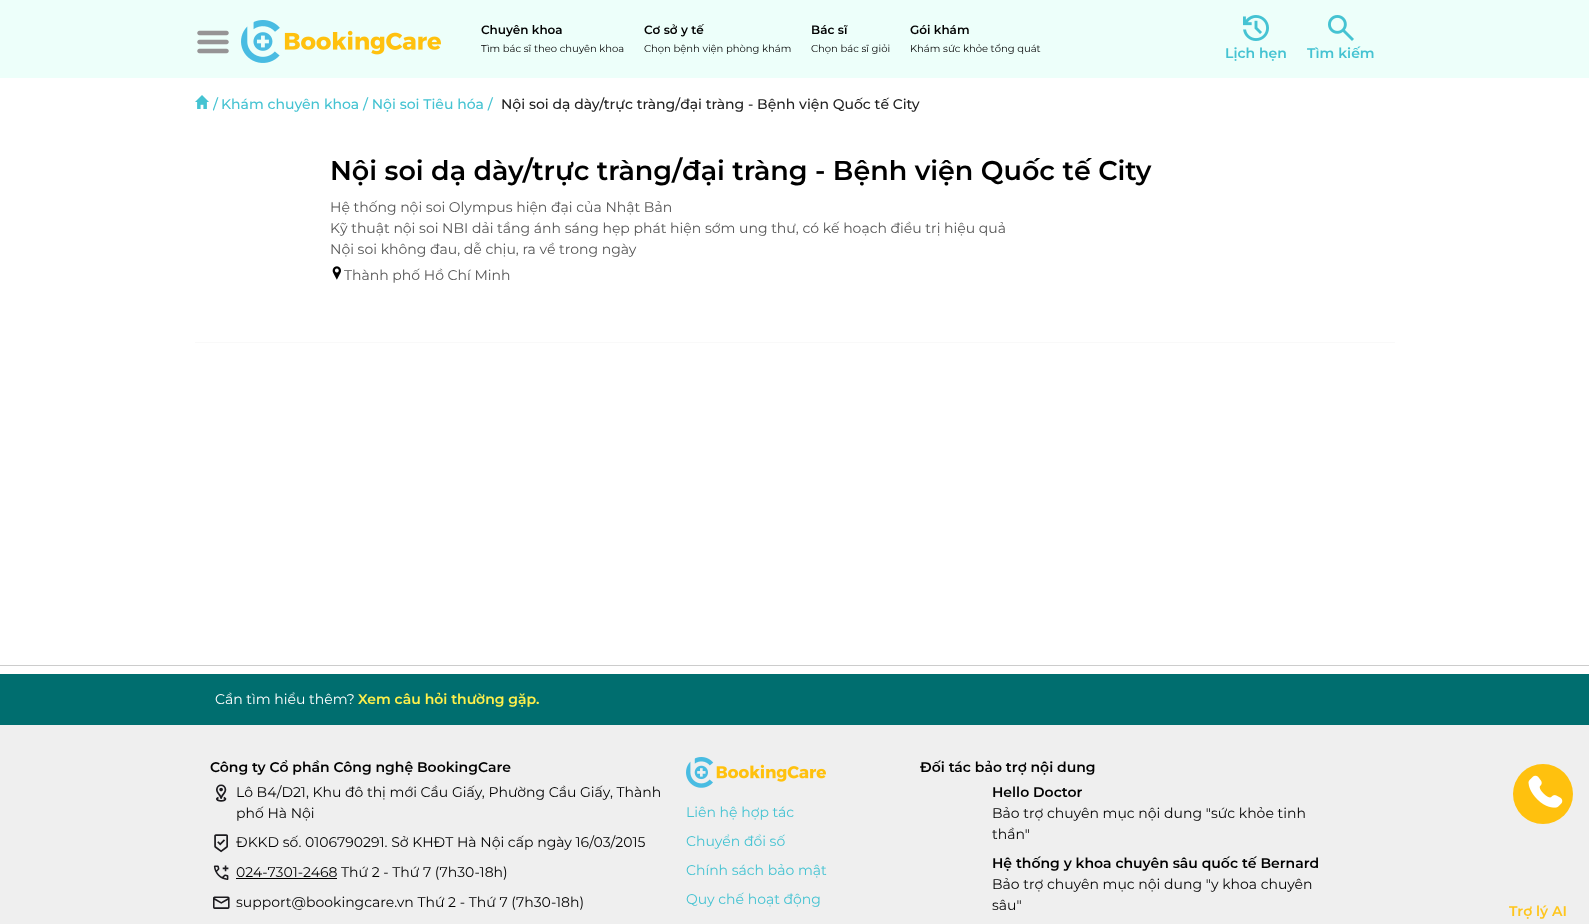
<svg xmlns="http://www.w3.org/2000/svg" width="1589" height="924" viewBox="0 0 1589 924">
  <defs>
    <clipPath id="clip1"><path d="M213 94h707v21H213z"/></clipPath>
  </defs>
  <rect width="100%" height="100%" fill="#fff"/>
  <path d="M0 0h1589v78H0z" fill="#edfffa"/>
  <image x="197" y="30" width="32" height="24" href="img/1.png"/>
  <image x="241" y="20" width="200" height="43" href="img/2.png"/>
  <image x="1243" y="15" width="26" height="26" href="img/3.png"/>
  <image x="1328" y="15" width="26" height="26" href="img/4.png"/>
  <image x="195" y="95" width="14" height="14" href="img/5.png"/>
  <image x="332" y="266" width="9" height="14" href="img/6.png"/>
  <path d="M195 342h1200v1H195z" fill="#f9f9f9"/>
  <path d="M0 665h1589v1H0z" fill="#ccc"/>
  <path d="M0 674h1589v51H0z" fill="#006e6f"/>
  <path d="M0 725h1589v199H0z" fill="#efefef"/>
  <image x="216" y="784" width="11" height="18" href="img/7.png"/>
  <image x="214" y="834" width="14" height="19" href="img/8.png"/>
  <image x="213" y="865" width="16" height="15" href="img/9.png"/>
  <path d="M236 878h101v1H236z" fill="#000"/>
  <image x="213" y="896" width="17" height="13" href="img/10.png"/>
  <image x="686" y="757" width="140" height="31" href="img/11.png"/>
  <circle cx="1543" cy="794" r="30" fill="#ffc10e"/>
  <image x="1528" y="775" width="35" height="33" href="img/12.png"/>
  <text x="481" y="34" font-family="Montserrat" font-size="12" font-weight="600" fill="#000">Chuyên khoa</text>
  <text x="481" y="52" font-family="Montserrat" font-size="10" fill="#000">Tìm bác sĩ theo chuyên khoa</text>
  <text x="644" y="34" font-family="Montserrat" font-size="12" font-weight="600" fill="#000">Cơ sở y tế</text>
  <text x="644" y="52" font-family="Montserrat" font-size="10" fill="#000">Chọn bệnh viện phòng khám</text>
  <text x="811" y="34" font-family="Montserrat" font-size="12" font-weight="600" fill="#000">Bác sĩ</text>
  <text x="811" y="52" font-family="Montserrat" font-size="10" fill="#000">Chọn bác sĩ giỏi</text>
  <text x="910" y="34" font-family="Montserrat" font-size="12" font-weight="600" fill="#000">Gói khám</text>
  <text x="910" y="52" font-family="Montserrat" font-size="10" fill="#000">Khám sức khỏe tổng quát</text>
  <g font-family="Montserrat" font-size="14" font-weight="600" fill="#45c3d2">
    <text x="1225" y="58">Lịch hẹn</text>
    <text x="1307" y="58">Tìm kiếm</text>
  </g>
  <g clip-path="url(#clip1)">
    <text x="213" y="109" font-family="Montserrat" font-size="14" font-weight="500" fill="#45c3d2">/</text>
  </g>
  <text x="221" y="109" font-family="Montserrat" font-size="14" font-weight="500" fill="#45c3d2">Khám chuyên khoa / Nội soi Tiêu hóa /</text>
  <text x="501" y="109" font-family="Montserrat" font-size="14" font-weight="500" fill="#222">Nội soi dạ dày/trực tràng/đại tràng - Bệnh viện Quốc tế City</text>
  <text x="330" y="180" font-family="Montserrat" font-size="27" font-weight="600" fill="#000">Nội soi dạ dày/trực tràng/đại tràng - Bệnh viện Quốc tế City</text>
  <g font-family="Montserrat" font-size="14" fill="#555">
    <text x="330" y="212">Hệ thống nội soi Olympus hiện đại của Nhật Bản</text>
    <text x="330" y="233">Kỹ thuật nội soi NBI dải tầng ánh sáng hẹp phát hiện sớm ung thư, có kế hoạch điều trị hiệu quả</text>
    <text x="330" y="254">Nội soi không đau, dễ chịu, ra về trong ngày</text>
    <text x="344" y="280">Thành phố Hồ Chí Minh</text>
  </g>
  <text x="215" y="704" font-family="Montserrat" font-size="14" fill="#fff">Cần tìm hiểu thêm?</text>
  <text x="358" y="704" font-family="Montserrat" font-size="14" font-weight="600" fill="#fff04b">Xem câu hỏi thường gặp.</text>
  <text x="210" y="772" font-family="Montserrat" font-size="14" font-weight="600" fill="#000">Công ty Cổ phần Công nghệ BookingCare</text>
  <g font-family="Montserrat" font-size="14" fill="#000">
    <text x="236" y="797">Lô B4/D21, Khu đô thị mới Cầu Giấy, Phường Cầu Giấy, Thành</text>
    <text x="236" y="818">phố Hà Nội</text>
    <text x="236" y="847">ĐKKD số. 0106790291. Sở KHĐT Hà Nội cấp ngày 16/03/2015</text>
    <text x="236" y="877">024-7301-2468</text>
    <text x="341" y="877">Thứ 2 - Thứ 7 (7h30-18h)</text>
    <text x="236" y="907">support@bookingcare.vn Thứ 2 - Thứ 7 (7h30-18h)</text>
  </g>
  <g font-family="Montserrat" font-size="14" fill="#45c3d2">
    <text x="686" y="817">Liên hệ hợp tác</text>
    <text x="686" y="846">Chuyển đổi số</text>
    <text x="686" y="875">Chính sách bảo mật</text>
    <text x="686" y="904">Quy chế hoạt động</text>
  </g>
  <g font-family="Montserrat" font-size="14" font-weight="600" fill="#000">
    <text x="920" y="772">Đối tác bảo trợ nội dung</text>
    <text x="992" y="797">Hello Doctor</text>
  </g>
  <g font-family="Montserrat" font-size="14" fill="#000">
    <text x="992" y="818">Bảo trợ chuyên mục nội dung "sức khỏe tinh</text>
    <text x="992" y="839">thần"</text>
  </g>
  <text x="992" y="868" font-family="Montserrat" font-size="14" font-weight="600" fill="#000">Hệ thống y khoa chuyên sâu quốc tế Bernard</text>
  <g font-family="Montserrat" font-size="14" fill="#000">
    <text x="992" y="889">Bảo trợ chuyên mục nội dung "y khoa chuyên</text>
    <text x="992" y="910">sâu"</text>
  </g>
  <text x="1509" y="916" font-family="Montserrat" font-size="14" font-weight="600" fill="#fec51d">Trợ lý AI</text>
</svg>
